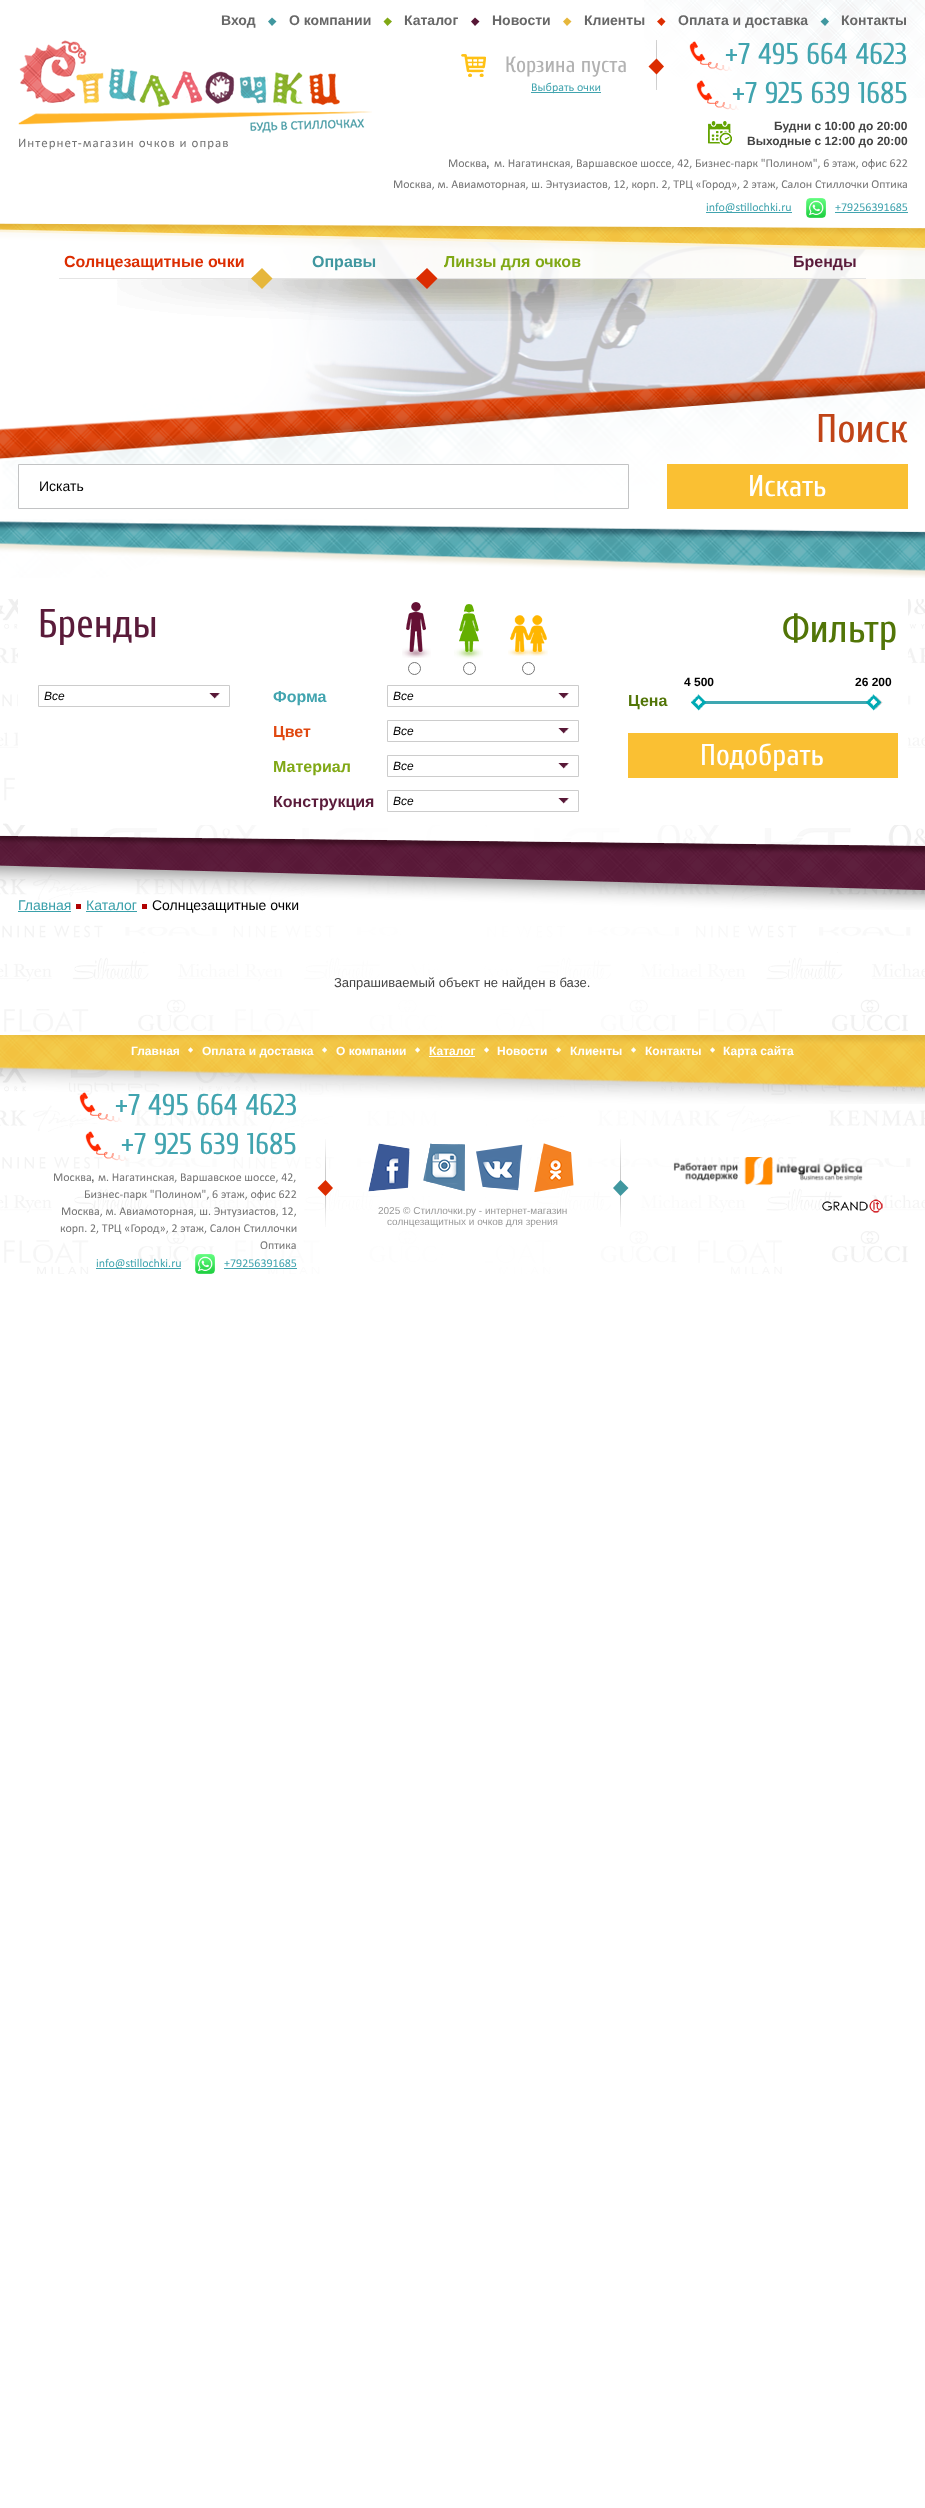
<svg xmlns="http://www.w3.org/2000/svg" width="925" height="2508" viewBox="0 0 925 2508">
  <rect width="100%" height="100%" fill="#fff"/>
  <image x="0" y="599" width="925" height="675" href="img/1.png"/>
  <image x="644" y="0" width="281" height="98" href="img/2.png"/>
  <path d="M268 21.5L272 17.5L276.5 21.5L272 26Z" fill="#40979f"/>
  <path d="M383.5 21.5L387.5 17.5L392 21.5L387.5 26Z" fill="#80a815"/>
  <path d="M471 21.5L475 17.5L479.5 21.5L475 26Z" fill="#571736"/>
  <path d="M563 21.5L567 17.5L571.5 21.5L567 26Z" fill="#e6b73c"/>
  <path d="M657 21.5L661.5 17.5L665.5 21.5L661.5 26Z" fill="#dc2d01"/>
  <path d="M820.5 21.5L825 17.5L829 21.5L825 26Z" fill="#40979f"/>
  <image x="18" y="40" width="354" height="93" href="img/3.png"/>
  <image x="656" y="40" width="1" height="50" href="img/4.png"/>
  <path d="M648.5 66.5L656.5 58.5L664 66.5L656.5 74.5Z" fill="#dc2d01"/>
  <image x="689" y="41" width="43" height="30" href="img/5.png"/>
  <image x="696" y="80" width="43" height="30" href="img/6.png"/>
  <image x="708" y="121" width="24" height="24" href="img/7.png"/>
  <path d="M706 212h86v1H706z" fill="#41a4af"/>
  <image x="806" y="198" width="20" height="20" href="img/8.png"/>
  <path d="M835 212h73v1H835z" fill="#41a4af"/>
  <image x="461" y="54" width="25" height="23" href="img/9.png"/>
  <path d="M531 92h70v1H531z" fill="#41a4af"/>
  <image x="0" y="225" width="925" height="284" href="img/10.png"/>
  <path d="M0 228h925v51H0z" fill="#ffffffcc"/>
  <image x="0" y="223" width="925" height="25" href="img/11.png"/>
  <path d="M59 278h807v1H59z" fill="#e4e4e4"/>
  <image x="117" y="279" width="690" height="42" href="img/12.png"/>
  <path d="M251 278.5L262 268L272.5 278.5L262 289Z" fill="#e6b73c"/>
  <path d="M416 278.5L427 268L437.5 278.5L427 289Z" fill="#dc2d01"/>
  <path d="M19 465h535v43H19z" fill="#fff"/>
  <path d="M18.5 464.5h610v44H18.5z" fill="none" stroke="#c2c3c4"/>
  <path d="M667 464h241v45H667z" fill="#fac033"/>
  <image x="0" y="519" width="925" height="59" href="img/13.png"/>
  <path d="M18 599h890v226H18z" fill="#fff"/>
  <image x="209" y="693" width="11" height="6" href="img/14.png"/>
  <path d="M38.5 685.5h191v21H38.5z" fill="none" stroke="#ccc"/>
  <image x="402" y="602" width="29" height="56" href="img/15.png"/>
  <circle cx="414.5" cy="668.5" r="6" fill="none" stroke="#767676"/>
  <image x="454" y="604" width="29" height="55" href="img/16.png"/>
  <circle cx="469.5" cy="668.5" r="6" fill="none" stroke="#767676"/>
  <image x="508" y="615" width="40" height="41" href="img/17.png"/>
  <circle cx="528.5" cy="668.5" r="6" fill="none" stroke="#767676"/>
  <image x="558" y="693" width="11" height="6" href="img/14.png"/>
  <path d="M387.5 685.5h191v21H387.5z" fill="none" stroke="#ccc"/>
  <image x="558" y="728" width="11" height="6" href="img/14.png"/>
  <path d="M387.5 720.5h191v21H387.5z" fill="none" stroke="#ccc"/>
  <image x="558" y="763" width="11" height="6" href="img/14.png"/>
  <path d="M387.5 755.5h191v21H387.5z" fill="none" stroke="#ccc"/>
  <image x="558" y="798" width="11" height="6" href="img/14.png"/>
  <path d="M387.5 790.5h191v21H387.5z" fill="none" stroke="#ccc"/>
  <path d="M699 701h175v3H699z" fill="#3ea7b1"/>
  <image x="691" y="694" width="15" height="17" href="img/18.png"/>
  <path d="M870 702.5L876 696L882.5 702.5L876 709Z" fill="#ccc"/>
  <image x="866" y="694" width="15" height="17" href="img/19.png"/>
  <path d="M628 733h270v45H628z" fill="#fac033"/>
  <image x="0" y="835" width="925" height="75" href="img/20.png"/>
  <path d="M18 911h53v1H18z" fill="#3aa0aa"/>
  <path d="M76 904h5v5H76z" fill="#b10202"/>
  <path d="M86 911h51v1H86z" fill="#3aa0aa"/>
  <path d="M142 904h5v5H142z" fill="#b10202"/>
  <image x="0" y="1035" width="925" height="69" href="img/21.png"/>
  <image x="188" y="1047" width="5" height="6" href="img/22.png"/>
  <image x="322" y="1047" width="5" height="6" href="img/23.png"/>
  <image x="415" y="1047" width="5" height="6" href="img/24.png"/>
  <path d="M429 1056h46v1H429z" fill="#fff"/>
  <image x="484" y="1047" width="5" height="6" href="img/25.png"/>
  <image x="556" y="1047" width="5" height="6" href="img/26.png"/>
  <image x="631" y="1047" width="5" height="6" href="img/27.png"/>
  <image x="710" y="1047" width="5" height="6" href="img/28.png"/>
  <image x="79" y="1092" width="43" height="30" href="img/29.png"/>
  <image x="85" y="1131" width="43" height="30" href="img/30.png"/>
  <path d="M96 1268h85v1H96z" fill="#41a4af"/>
  <image x="195" y="1254" width="20" height="20" href="img/31.png"/>
  <path d="M224 1268h73v1H224z" fill="#41a4af"/>
  <image x="325" y="1139" width="1" height="88" href="img/32.png"/>
  <path d="M317.5 1188L325.5 1180L333 1188L325.5 1196Z" fill="#dc2d01"/>
  <image x="620" y="1139" width="1" height="88" href="img/33.png"/>
  <path d="M613 1188L620.5 1180L628.5 1188L620.5 1196Z" fill="#40979f"/>
  <image x="673" y="1157" width="190" height="29" href="img/34.png"/>
  <image x="822" y="1199" width="61" height="14" href="img/35.png"/>
  <image x="368" y="1143" width="42" height="49" href="img/36.png"/>
  <image x="423" y="1143" width="42" height="48" href="img/37.png"/>
  <image x="476" y="1144" width="47" height="47" href="img/38.png"/>
  <image x="534" y="1143" width="40" height="49" href="img/39.png"/>
  <g font-family="Liberation Sans" font-size="14" font-weight="bold" fill="#676767">
    <text x="221" y="25">Вход</text>
    <text x="289" y="25">О компании</text>
    <text x="404" y="25">Каталог</text>
    <text x="492" y="25">Новости</text>
    <text x="584" y="25">Клиенты</text>
    <text x="678" y="25">Оплата и доставка</text>
    <text x="841" y="25">Контакты</text>
  </g>
  <text x="18" y="147" font-family="Calibri" font-size="13" letter-spacing="1" fill="#747474">Интернет-магазин очков и оправ</text>
  <g font-family="Cuprum" font-size="30" fill="#41a4af">
    <text x="725" y="64">+7 495 664 4623</text>
    <text x="732" y="103">+7 925 639 1685</text>
  </g>
  <g font-family="Liberation Sans" font-size="12" font-weight="bold" fill="#444">
    <text x="774" y="130">Будни с 10:00 до 20:00</text>
    <text x="747" y="145">Выходные с 12:00 до 20:00</text>
  </g>
  <text x="448" y="167" font-family="Calibri" font-size="12" fill="#747474">Москва</text>
  <text x="486" y="167" font-family="Liberation Sans" font-size="13" fill="#444">,</text>
  <g font-family="Calibri" font-size="12" fill="#747474">
    <text x="494" y="167">м. Нагатинская, Варшавское шоссе, 42, Бизнес-парк "Полином", 6 этаж, офис 622</text>
    <text x="393" y="188">Москва, м. Авиамоторная, ш. Энтузиастов, 12, корп. 2, ТРЦ «Город», 2 этаж, Салон Стиллочки Оптика</text>
  </g>
  <g font-family="Calibri" font-size="12" fill="#41a4af">
    <text x="706" y="211">info@stillochki.ru</text>
    <text x="835" y="211">+79256391685</text>
  </g>
  <text x="505" y="72" font-family="Cuprum" font-size="22" fill="#b2b2b2">Корзина пуста</text>
  <text x="531" y="91" font-family="Calibri" font-size="12" fill="#41a4af">Выбрать очки</text>
  <text x="64" y="267" font-family="Liberation Sans" font-size="16" font-weight="bold" fill="#dc2d01">Солнцезащитные очки</text>
  <text x="312" y="267" font-family="Liberation Sans" font-size="16" font-weight="bold" fill="#40979f">Оправы</text>
  <text x="444" y="267" font-family="Liberation Sans" font-size="16" font-weight="bold" fill="#80a815">Линзы для очков</text>
  <text x="793" y="267" font-family="Liberation Sans" font-size="16" font-weight="bold" fill="#5a1b3a">Бренды</text>
  <text x="816" y="442" font-family="Cuprum" font-size="40" fill="#c04417">Поиск</text>
  <text x="39" y="491" font-family="Liberation Sans" font-size="14" fill="#000">Искать</text>
  <text x="748" y="496" font-family="Cuprum" font-size="30" fill="#fff">Искать</text>
  <text x="38" y="637" font-family="Cuprum" font-size="40" fill="#5a1b3a">Бренды</text>
  <text x="44" y="700" font-family="Liberation Sans" font-size="12" font-style="italic" fill="#000">Все</text>
  <text x="273" y="702" font-family="Liberation Sans" font-size="16" font-weight="bold" fill="#41a4af">Форма</text>
  <text x="393" y="700" font-family="Liberation Sans" font-size="12" font-style="italic" fill="#000">Все</text>
  <text x="273" y="737" font-family="Liberation Sans" font-size="16" font-weight="bold" fill="#e04810">Цвет</text>
  <text x="393" y="735" font-family="Liberation Sans" font-size="12" font-style="italic" fill="#000">Все</text>
  <text x="273" y="772" font-family="Liberation Sans" font-size="16" font-weight="bold" fill="#80a815">Материал</text>
  <text x="393" y="770" font-family="Liberation Sans" font-size="12" font-style="italic" fill="#000">Все</text>
  <text x="273" y="807" font-family="Liberation Sans" font-size="16" font-weight="bold" fill="#5a1b3a">Конструкция</text>
  <text x="393" y="805" font-family="Liberation Sans" font-size="12" font-style="italic" fill="#000">Все</text>
  <text x="782" y="642" font-family="Cuprum" font-size="40" fill="#527507">Фильтр</text>
  <g font-family="Liberation Sans" font-size="12" font-weight="bold" fill="#000">
    <text x="684" y="686">4 500</text>
    <text x="855" y="686">26 200</text>
  </g>
  <text x="628" y="706" font-family="Liberation Sans" font-size="16" font-weight="bold" fill="#527507">Цена</text>
  <text x="700" y="765" font-family="Cuprum" font-size="30" fill="#fff">Подобрать</text>
  <g font-family="Liberation Sans" font-size="14" fill="#3aa0aa">
    <text x="18" y="910">Главная</text>
    <text x="86" y="910">Каталог</text>
  </g>
  <text x="152" y="910" font-family="Liberation Sans" font-size="14" fill="#000">Солнцезащитные очки</text>
  <text x="334" y="987" font-family="Liberation Sans" font-size="13" fill="#444">Запрашиваемый объект не найден в базе.</text>
  <g font-family="Liberation Sans" font-size="12" font-weight="bold" fill="#fff">
    <text x="131" y="1055">Главная</text>
    <text x="202" y="1055">Оплата и доставка</text>
    <text x="336" y="1055">О компании</text>
    <text x="429" y="1055">Каталог</text>
    <text x="497" y="1055">Новости</text>
    <text x="570" y="1055">Клиенты</text>
    <text x="645" y="1055">Контакты</text>
    <text x="723" y="1055">Карта сайта</text>
  </g>
  <g font-family="Cuprum" font-size="30" fill="#41a4af">
    <text x="115" y="1115">+7 495 664 4623</text>
    <text x="121" y="1154">+7 925 639 1685</text>
  </g>
  <text x="53" y="1181" font-family="Calibri" font-size="12" fill="#747474">Москва</text>
  <text x="91" y="1181" font-family="Liberation Sans" font-size="13" fill="#444">,</text>
  <g font-family="Calibri" font-size="12" fill="#747474">
    <text x="98" y="1181">м. Нагатинская, Варшавское шоссе, 42,</text>
    <text x="84" y="1198">Бизнес-парк "Полином", 6 этаж, офис 622</text>
    <text x="61" y="1215">Москва, м. Авиамоторная, ш. Энтузиастов, 12,</text>
    <text x="60" y="1232">корп. 2, ТРЦ «Город», 2 этаж, Салон Стиллочки</text>
    <text x="260" y="1249">Оптика</text>
  </g>
  <g font-family="Calibri" font-size="12" fill="#41a4af">
    <text x="96" y="1267">info@stillochki.ru</text>
    <text x="224" y="1267">+79256391685</text>
  </g>
  <g font-family="Liberation Sans" font-size="10" fill="#999">
    <text x="378" y="1214">2025 © Стиллочки.ру - интернет-магазин</text>
    <text x="387" y="1225">солнцезащитных и очков для зрения</text>
  </g>
</svg>
